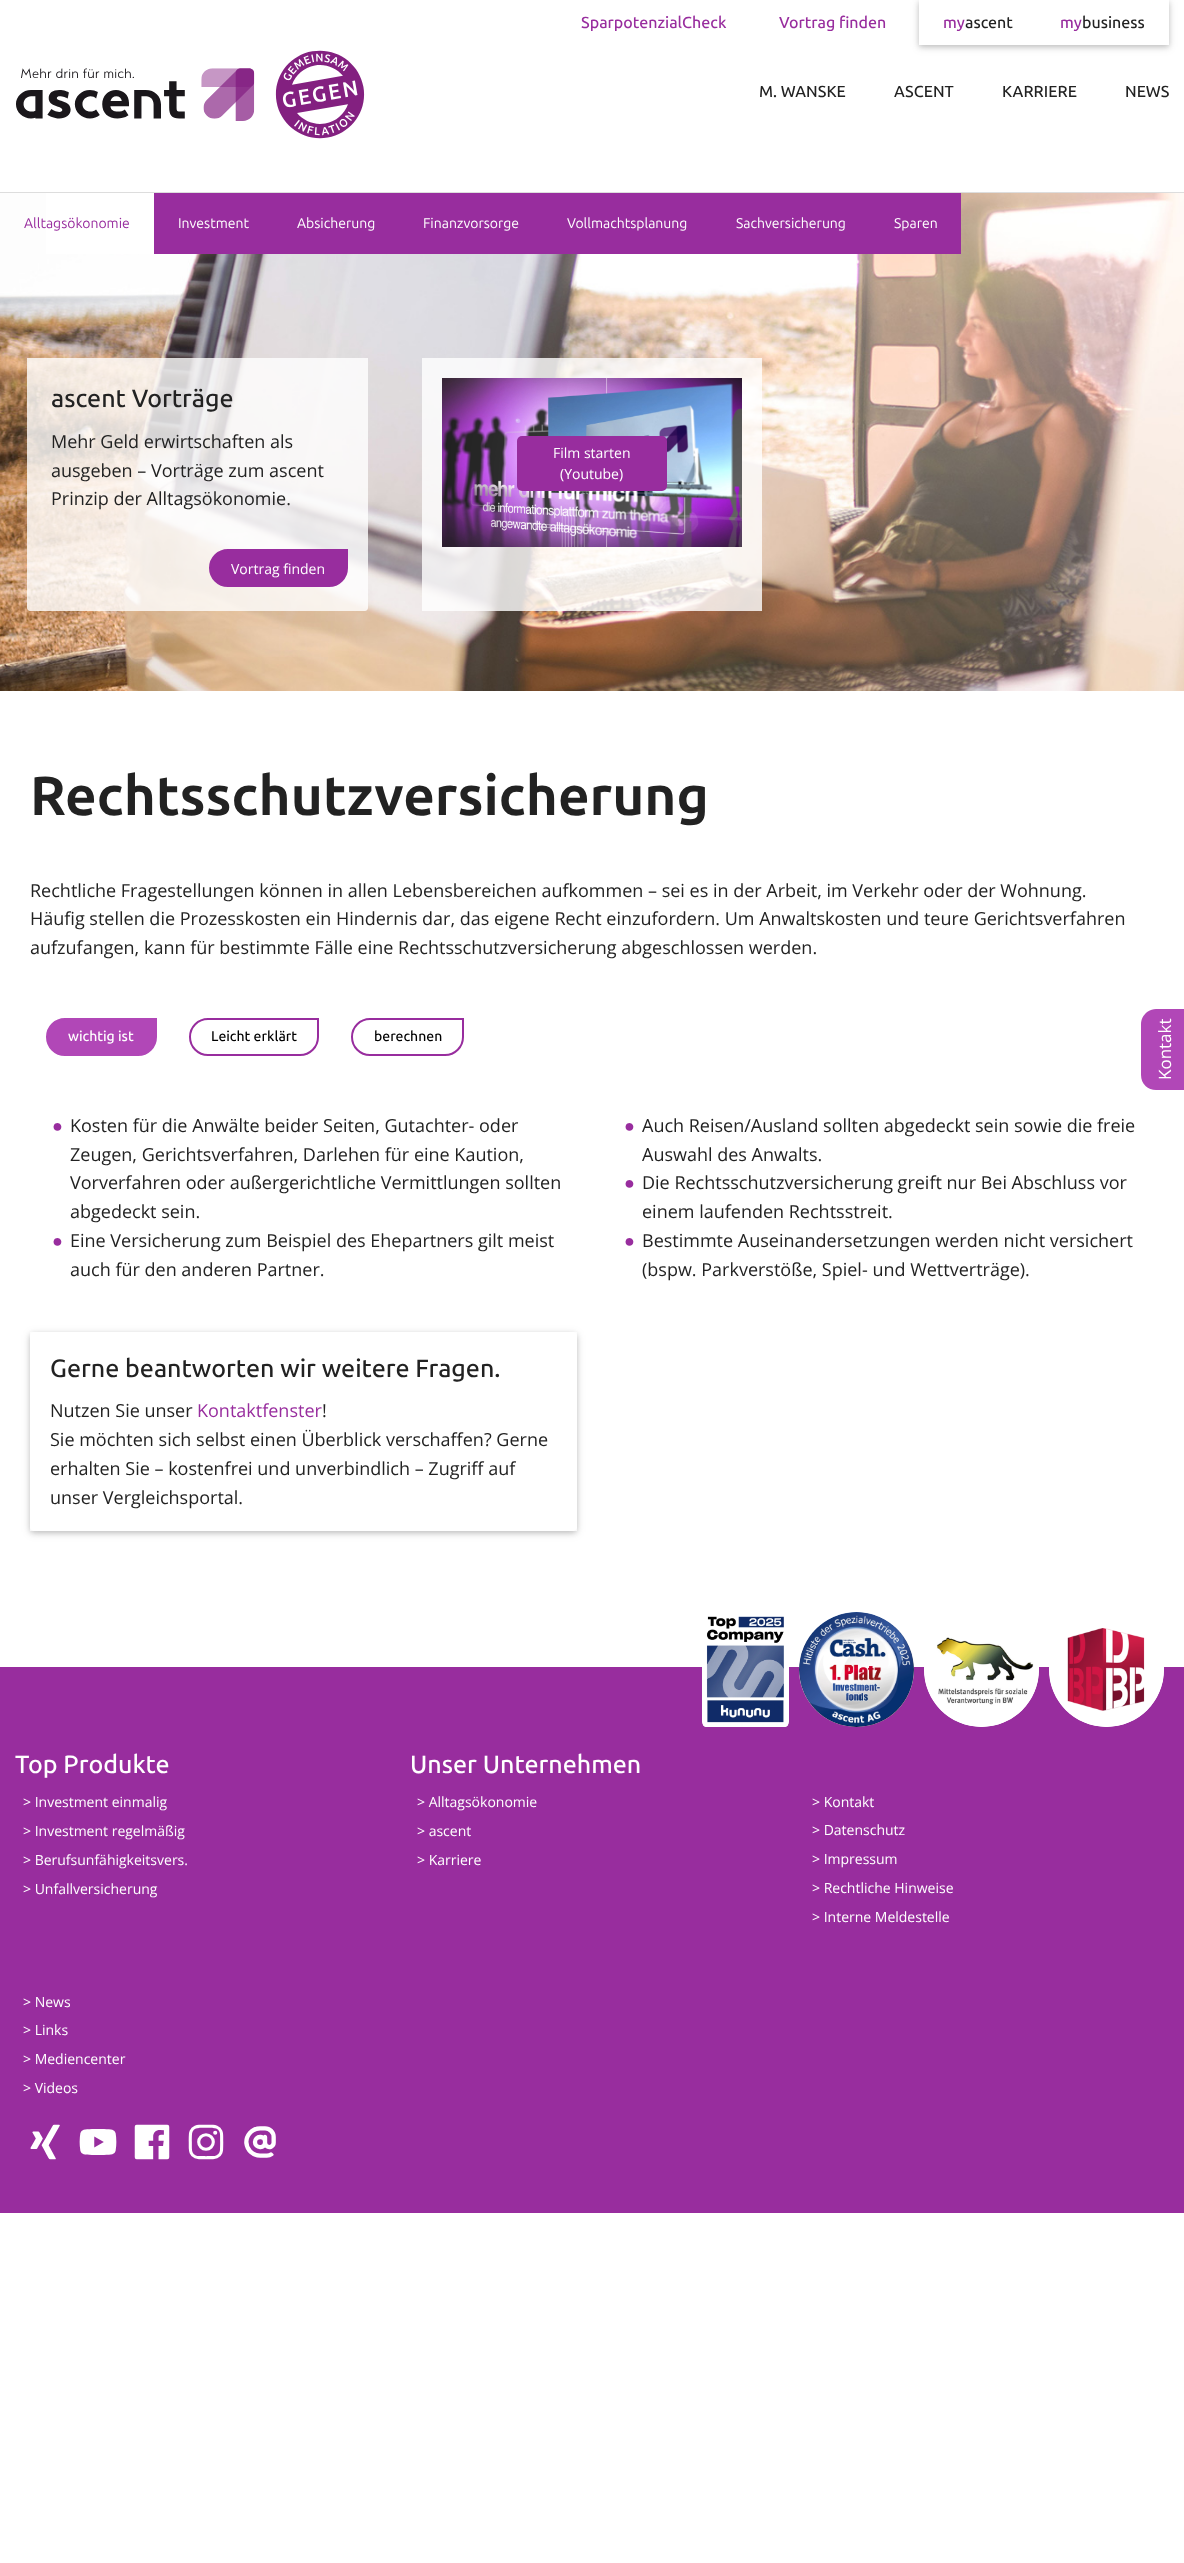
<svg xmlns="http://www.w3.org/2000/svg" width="1184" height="2563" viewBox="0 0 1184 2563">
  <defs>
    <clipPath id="clip1"><path d="M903 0H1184V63H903ZM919 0H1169V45H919Z" clip-rule="evenodd"/></clipPath>
    <clipPath id="clip2"><path d="M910 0H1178V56H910ZM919 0H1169V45H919Z" clip-rule="evenodd"/></clipPath>
    <clipPath id="clip3"><path d="M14 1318H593V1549H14ZM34 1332H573C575 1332 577 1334 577 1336V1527C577 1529 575 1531 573 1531H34C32 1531 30 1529 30 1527V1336C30 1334 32 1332 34 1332Z" clip-rule="evenodd"/></clipPath>
    <clipPath id="clip4"><path d="M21 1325H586V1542H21ZM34 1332H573C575 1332 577 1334 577 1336V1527C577 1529 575 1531 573 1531H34C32 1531 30 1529 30 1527V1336C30 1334 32 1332 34 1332Z" clip-rule="evenodd"/></clipPath>
  </defs>
  <rect width="100%" height="100%" fill="#fff"/>
  <g clip-path="url(#clip1)">
    <path d="M919 2h250v45H919z" fill="#0000001f" filter="blur(5px)"/>
  </g>
  <g clip-path="url(#clip2)">
    <path d="M919 2h250v45H919z" fill="#00000029" filter="blur(2.5px)"/>
  </g>
  <image x="16" y="50" width="349" height="89" href="img/1.png"/>
  <image x="0" y="193" width="1184" height="498" href="img/2.png"/>
  <path d="M0 192h1184v1H0z" fill="#ddd"/>
  <path d="M154 193h807v61H154z" fill="#982d9e"/>
  <path d="M46 193h108v61H46z" fill="#fff"/>
  <path d="M27 358h341v179H27z" fill="#ffffffcc"/>
  <path d="M27 537H368V608C368 609.5 366.5 611 365 611H30C28.5 611 27 609.5 27 608Z" fill="#ffffffcc"/>
  <path d="M228 550H347V568C347 578 339 586 329 586H228C218 586 210 578 210 568C210 558 218 550 228 550Z" fill="#982d9e" stroke="#982d9e" stroke-width="2"/>
  <path d="M422 358h340v253H422z" fill="#ffffffcc"/>
  <image x="442" y="378" width="300" height="169" href="img/3.png"/>
  <rect x="517" y="436" width="150" height="55" rx="5" fill="#982d9e"/>
  <path d="M65 1019H156V1037C156 1047 148 1055 138 1055H65C55 1055 47 1047 47 1037C47 1027 55 1019 65 1019Z" fill="#b147b7" stroke="#b147b7" stroke-width="2"/>
  <path d="M208 1019H318V1037C318 1047 310 1055 300 1055H208C198 1055 190 1047 190 1037C190 1027 198 1019 208 1019Z" fill="none" stroke="#982d9e" stroke-width="2"/>
  <path d="M370 1019H463V1037C463 1047 455 1055 445 1055H370C360 1055 352 1047 352 1037C352 1027 360 1019 370 1019Z" fill="none" stroke="#982d9e" stroke-width="2"/>
  <g clip-path="url(#clip3)">
    <rect x="30" y="1334" width="547" height="199" rx="4" fill="#0000001f" filter="blur(5px)"/>
  </g>
  <g clip-path="url(#clip4)">
    <rect x="30" y="1334" width="547" height="199" rx="4" fill="#00000029" filter="blur(2.5px)"/>
  </g>
  <path d="M30 1332h547v199H30z" fill="#ffffffcc"/>
  <path d="M1141 1075V1024C1141 1016 1148 1009 1156 1009H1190V1090H1156C1148 1090 1141 1084 1141 1075Z" fill="#b147b7"/>
  <path d="M0 1667h1184v546H0z" fill="#982d9e"/>
  <path d="M706 1612H785C787 1612 789 1615 789 1618V1721C789 1724 787 1727 785 1727H706C704 1727 702 1724 702 1721V1618C702 1615 704 1612 706 1612Z" fill="#fff"/>
  <image x="702" y="1616" width="87" height="111" href="img/4.png"/>
  <circle cx="856.5" cy="1669.5" r="57.5" fill="#fff"/>
  <image x="799" y="1612" width="115" height="115" href="img/5.png"/>
  <circle cx="981.5" cy="1669.5" r="57.5" fill="#fff"/>
  <image x="924" y="1637" width="115" height="90" href="img/6.png"/>
  <circle cx="1106.5" cy="1669.5" r="57.5" fill="#fff"/>
  <image x="1049" y="1628" width="115" height="99" href="img/7.png"/>
  <image x="30" y="2124" width="30" height="36" href="img/8.png"/>
  <image x="79" y="2129" width="38" height="26" href="img/9.png"/>
  <image x="134" y="2124" width="36" height="36" href="img/10.png"/>
  <image x="188" y="2124" width="36" height="36" href="img/11.png"/>
  <image x="244" y="2126" width="32" height="32" href="img/12.png"/>
  <g font-family="Ubuntu" font-size="16" font-weight="500" fill="#982d9e">
    <text x="581" y="28">SparpotenzialCheck</text>
    <text x="779" y="28">Vortrag finden</text>
    <text x="943" y="28">my</text>
  </g>
  <text x="965" y="28" font-family="Ubuntu" font-size="16" font-weight="500" fill="#222">ascent</text>
  <text x="1060" y="28" font-family="Ubuntu" font-size="16" font-weight="500" fill="#982d9e">my</text>
  <g font-family="Ubuntu" font-size="16" font-weight="500" fill="#222">
    <text x="1082" y="28">business</text>
    <text x="759" y="97">M. WANSKE</text>
    <text x="894" y="97">ASCENT</text>
    <text x="1002" y="97">KARRIERE</text>
    <text x="1125" y="97">NEWS</text>
  </g>
  <text x="24" y="228" font-family="Ubuntu" font-size="14" fill="#982d9e">Alltagsökonomie</text>
  <g font-family="Ubuntu" font-size="14" fill="#fff">
    <text x="178" y="228">Investment</text>
    <text x="297" y="228">Absicherung</text>
    <text x="423" y="228">Finanzvorsorge</text>
    <text x="567" y="228">Vollmachtsplanung</text>
    <text x="736" y="228">Sachversicherung</text>
    <text x="894" y="228">Sparen</text>
  </g>
  <text x="51" y="407" font-family="Ubuntu" font-size="25" font-weight="500" fill="#222">ascent Vorträge</text>
  <g font-family="Open Sans" font-size="18" fill="#222">
    <text x="51" y="448">Mehr Geld erwirtschaften als</text>
    <text x="51" y="477">ausgeben – Vorträge zum ascent</text>
    <text x="51" y="505">Prinzip der Alltagsökonomie.</text>
  </g>
  <g font-family="Open Sans" font-size="14" fill="#fff">
    <text x="231" y="574">Vortrag finden</text>
    <text x="553" y="458">Film starten</text>
    <text x="560" y="479">(Youtube)</text>
  </g>
  <text x="30" y="815" font-family="Ubuntu" font-size="55" font-weight="bold" fill="#222">Rechtsschutzversicherung</text>
  <g font-family="Open Sans" font-size="18" fill="#222">
    <text x="30" y="897">Rechtliche Fragestellungen können in allen Lebensbereichen aufkommen – sei es in der Arbeit, im Verkehr oder der Wohnung.</text>
    <text x="30" y="925">Häufig stellen die Prozesskosten ein Hindernis dar, das eigene Recht einzufordern. Um Anwaltskosten und teure Gerichtsverfahren</text>
    <text x="30" y="954">aufzufangen, kann für bestimmte Fälle eine Rechtsschutzversicherung abgeschlossen werden.</text>
  </g>
  <text x="68" y="1041" font-family="Ubuntu" font-size="14" font-weight="500" fill="#fff">wichtig ist</text>
  <g font-family="Ubuntu" font-size="14" font-weight="500" fill="#000">
    <text x="211" y="1041">Leicht erklärt</text>
    <text x="374" y="1041">berechnen</text>
  </g>
  <text x="52" y="1132" font-family="Liberation Sans" font-size="18" font-weight="bold" fill="#982d9e">●</text>
  <g font-family="Open Sans" font-size="18" fill="#222">
    <text x="70" y="1132">Kosten für die Anwälte beider Seiten, Gutachter- oder</text>
    <text x="70" y="1161">Zeugen, Gerichtsverfahren, Darlehen für eine Kaution,</text>
    <text x="70" y="1189">Vorverfahren oder außergerichtliche Vermittlungen sollten</text>
    <text x="70" y="1218">abgedeckt sein.</text>
  </g>
  <text x="624" y="1132" font-family="Liberation Sans" font-size="18" font-weight="bold" fill="#982d9e">●</text>
  <g font-family="Open Sans" font-size="18" fill="#222">
    <text x="642" y="1132">Auch Reisen/Ausland sollten abgedeckt sein sowie die freie</text>
    <text x="642" y="1161">Auswahl des Anwalts.</text>
  </g>
  <text x="624" y="1189" font-family="Liberation Sans" font-size="18" font-weight="bold" fill="#982d9e">●</text>
  <g font-family="Open Sans" font-size="18" fill="#222">
    <text x="642" y="1189">Die Rechtsschutzversicherung greift nur Bei Abschluss vor</text>
    <text x="642" y="1218">einem laufenden Rechtsstreit.</text>
  </g>
  <text x="52" y="1247" font-family="Liberation Sans" font-size="18" font-weight="bold" fill="#982d9e">●</text>
  <g font-family="Open Sans" font-size="18" fill="#222">
    <text x="70" y="1247">Eine Versicherung zum Beispiel des Ehepartners gilt meist</text>
    <text x="70" y="1276">auch für den anderen Partner.</text>
  </g>
  <text x="624" y="1247" font-family="Liberation Sans" font-size="18" font-weight="bold" fill="#982d9e">●</text>
  <g font-family="Open Sans" font-size="18" fill="#222">
    <text x="642" y="1247">Bestimmte Auseinandersetzungen werden nicht versichert</text>
    <text x="642" y="1276">(bspw. Parkverstöße, Spiel- und Wettverträge).</text>
  </g>
  <text x="50" y="1377" font-family="Ubuntu" font-size="25" font-weight="500" fill="#222">Gerne beantworten wir weitere Fragen.</text>
  <text x="50" y="1417" font-family="Open Sans" font-size="18" fill="#222">Nutzen Sie unser</text>
  <text x="197" y="1417" font-family="Open Sans" font-size="18" fill="#982d9e">Kontaktfenster</text>
  <g font-family="Open Sans" font-size="18" fill="#222">
    <text x="322" y="1417">!</text>
    <text x="50" y="1446">Sie möchten sich selbst einen Überblick verschaffen? Gerne</text>
    <text x="50" y="1475">erhalten Sie – kostenfrei und unverbindlich – Zugriff auf</text>
    <text x="50" y="1504">unser Vergleichsportal.</text>
  </g>
  <text x="1171" y="1080" transform="rotate(-90 1171 1080)" font-family="Open Sans" font-size="17" fill="#fff">Kontakt</text>
  <text x="15" y="1773" font-family="Ubuntu" font-size="25" font-weight="500" fill="#fff">Top Produkte</text>
  <g font-family="Open Sans" font-size="14" fill="#fff">
    <text x="23" y="1807">&gt; Investment einmalig</text>
    <text x="23" y="1836">&gt; Investment regelmäßig</text>
    <text x="23" y="1865">&gt; Berufsunfähigkeitsvers.</text>
    <text x="23" y="1894">&gt; Unfallversicherung</text>
  </g>
  <text x="410" y="1773" font-family="Ubuntu" font-size="25" font-weight="500" fill="#fff">Unser Unternehmen</text>
  <g font-family="Open Sans" font-size="14" fill="#fff">
    <text x="417" y="1807">&gt; Alltagsökonomie</text>
    <text x="417" y="1836">&gt; ascent</text>
    <text x="417" y="1865">&gt; Karriere</text>
    <text x="812" y="1807">&gt; Kontakt</text>
    <text x="812" y="1835">&gt; Datenschutz</text>
    <text x="812" y="1864">&gt; Impressum</text>
    <text x="812" y="1893">&gt; Rechtliche Hinweise</text>
    <text x="812" y="1922">&gt; Interne Meldestelle</text>
    <text x="23" y="2007">&gt; News</text>
    <text x="23" y="2035">&gt; Links</text>
    <text x="23" y="2064">&gt; Mediencenter</text>
    <text x="23" y="2093">&gt; Videos</text>
  </g>
</svg>
